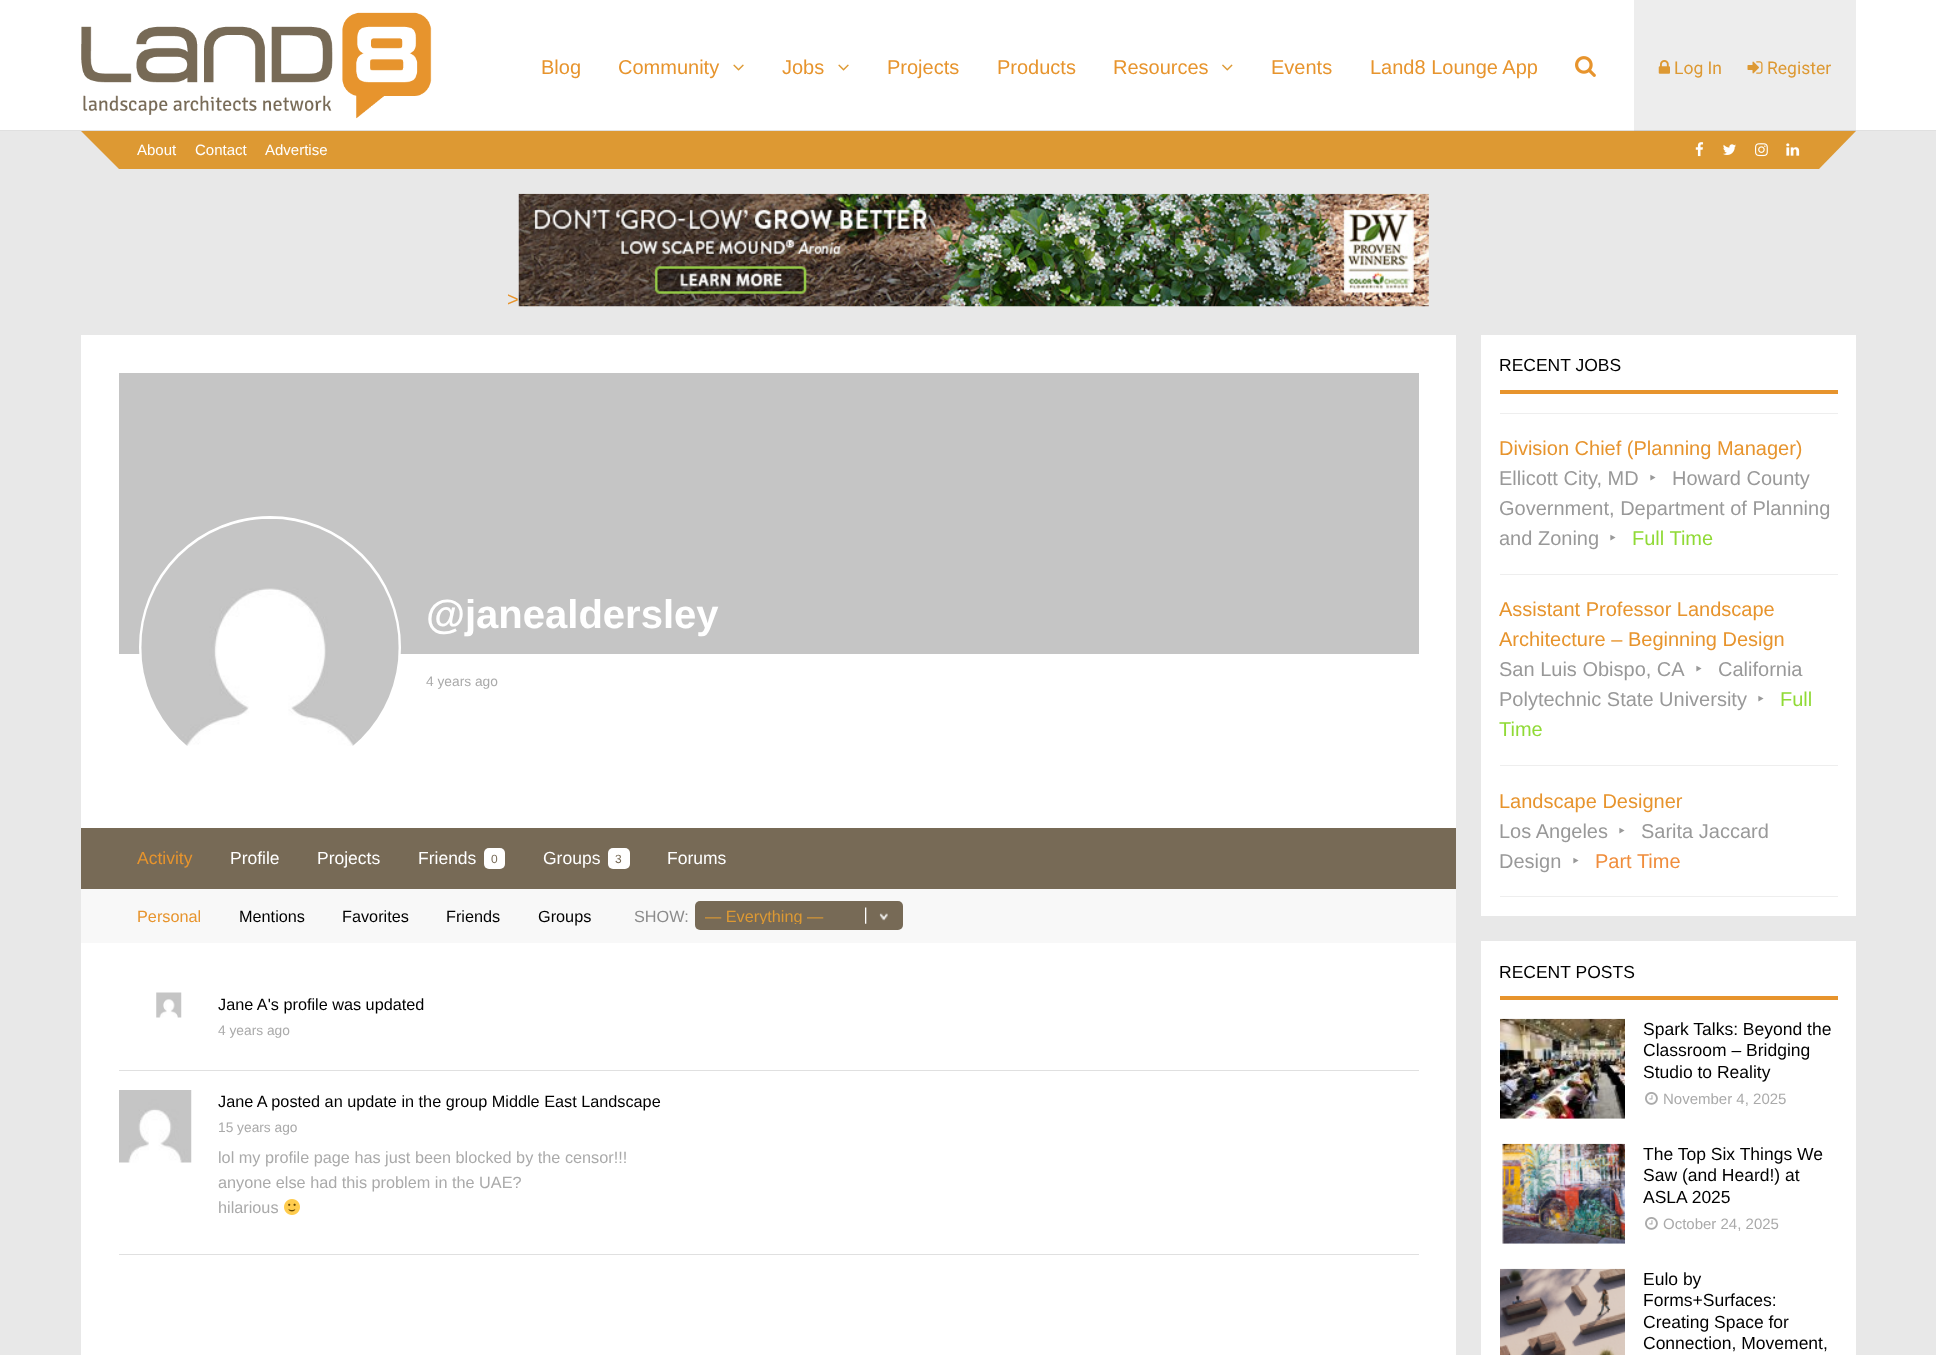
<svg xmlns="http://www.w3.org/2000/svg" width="1936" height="1355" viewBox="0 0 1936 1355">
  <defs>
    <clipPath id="clip1"><path d="M705 908h148v16H705z"/></clipPath>
  </defs>
  <rect width="100%" height="100%" fill="#e8e8e8"/>
  <path d="M0 0h1936v130H0z" fill="#fff"/>
  <path d="M1634 0h222v130H1634z" fill="#ededed"/>
  <path d="M0 130h1936v1H0z" fill="#e0e0e0"/>
  <path d="M1634 130h222v1H1634z" fill="#d0d0d0"/>
  <image x="81" y="12" width="351" height="107" href="img/1.png"/>
  <image x="733" y="64" width="11" height="7" href="img/2.png"/>
  <image x="838" y="64" width="11" height="7" href="img/2.png"/>
  <image x="1222" y="64" width="11" height="7" href="img/3.png"/>
  <image x="1575" y="56" width="21" height="21" href="img/4.png"/>
  <image x="1658" y="60" width="12" height="14" href="img/5.png"/>
  <image x="1747" y="61" width="16" height="13" href="img/6.png"/>
  <path d="M81 131h1775v38H81z" fill="#d93"/>
  <path d="M81 169V131L119 169Z" fill="#e8e8e8"/>
  <image x="1695" y="142" width="9" height="15" href="img/7.png"/>
  <image x="1723" y="144" width="13" height="11" href="img/8.png"/>
  <image x="1755" y="143" width="13" height="14" href="img/9.png"/>
  <image x="1786" y="143" width="14" height="13" href="img/10.png"/>
  <path d="M1856 169H1819L1856 131Z" fill="#e8e8e8"/>
  <image x="518" y="193" width="911" height="114" href="img/11.png"/>
  <path d="M81 335h1375v1020H81z" fill="#fff"/>
  <path d="M119 373h1300v281H119z" fill="#c5c5c5"/>
  <rect x="140.5" y="517.5" width="259" height="260" rx="129.5" fill="#ffffffcc" stroke="#fff" stroke-width="3"/>
  <image x="141" y="519" width="258" height="227" href="img/12.png"/>
  <path d="M81 828h1375v61H81z" fill="#776a56"/>
  <rect x="484" y="848" width="21" height="21" rx="5" fill="#fff"/>
  <rect x="608" y="848" width="22" height="21" rx="5" fill="#fff"/>
  <path d="M81 889h1375v54H81z" fill="#f8f8f8"/>
  <rect x="695" y="901" width="208" height="29" rx="5" fill="#776a56"/>
  <image x="865" y="907" width="23" height="17" href="img/13.png"/>
  <path d="M119 1070h1300v1H119z" fill="#e0e0e0"/>
  <image x="156" y="992" width="26" height="26" href="img/14.png"/>
  <path d="M119 1254h1300v1H119z" fill="#e0e0e0"/>
  <image x="119" y="1090" width="73" height="73" href="img/15.png"/>
  <image x="284" y="1199" width="16" height="16" href="img/16.png"/>
  <path d="M1481 335h375v581H1481z" fill="#fff"/>
  <path d="M1500 390h338v4H1500z" fill="#e7942d"/>
  <path d="M1500 413h338v1H1500z" fill="#eee"/>
  <path d="M1500 574h338v1H1500z" fill="#eee"/>
  <path d="M1500 765h338v1H1500z" fill="#eee"/>
  <path d="M1500 896h338v1H1500z" fill="#eee"/>
  <path d="M1481 941h375v414H1481z" fill="#fff"/>
  <path d="M1500 996h338v4H1500z" fill="#e7942d"/>
  <image x="1500" y="1018" width="125" height="101" href="img/17.png"/>
  <image x="1645" y="1092" width="13" height="13" href="img/18.png"/>
  <image x="1502" y="1143" width="123" height="101" href="img/19.png"/>
  <image x="1645" y="1217" width="13" height="13" href="img/18.png"/>
  <image x="1500" y="1268" width="125" height="87" href="img/20.png"/>
  <g font-family="Liberation Sans" font-size="20" fill="#e7942d">
    <text x="541" y="74">Blog</text>
    <text x="618" y="74">Community</text>
    <text x="782" y="74">Jobs</text>
    <text x="887" y="74">Projects</text>
    <text x="997" y="74">Products</text>
    <text x="1113" y="74">Resources</text>
    <text x="1271" y="74">Events</text>
    <text x="1370" y="74">Land8 Lounge App</text>
  </g>
  <g font-family="Roboto" font-size="17.5" fill="#d93">
    <text x="1674" y="74">Log In</text>
    <text x="1767" y="74">Register</text>
  </g>
  <g font-family="Liberation Sans" font-size="15" fill="#fff">
    <text x="137" y="155">About</text>
    <text x="195" y="155">Contact</text>
    <text x="265" y="155">Advertise</text>
  </g>
  <text x="507" y="306" font-family="Liberation Sans" font-size="20" fill="#e7942d">&gt;</text>
  <text x="426" y="628" font-family="Liberation Sans" font-size="40" font-weight="bold" fill="#fff">@janealdersley</text>
  <text x="426" y="686" font-family="Liberation Sans" font-size="13.75" fill="#aaa">4 years ago</text>
  <text x="137" y="864" font-family="Liberation Sans" font-size="17.5" fill="#e7942d">Activity</text>
  <g font-family="Liberation Sans" font-size="17.5" fill="#fff">
    <text x="230" y="864">Profile</text>
    <text x="317" y="864">Projects</text>
    <text x="418" y="864">Friends</text>
  </g>
  <text x="491" y="863" font-family="Liberation Sans" font-size="12" fill="#776a56">0</text>
  <text x="543" y="864" font-family="Liberation Sans" font-size="17.5" fill="#fff">Groups</text>
  <text x="615" y="863" font-family="Liberation Sans" font-size="12" fill="#776a56">3</text>
  <text x="667" y="864" font-family="Liberation Sans" font-size="17.5" fill="#fff">Forums</text>
  <text x="137" y="922" font-family="Liberation Sans" font-size="16.25" fill="#e7942d">Personal</text>
  <g font-family="Liberation Sans" font-size="16.25" fill="#000">
    <text x="239" y="922">Mentions</text>
    <text x="342" y="922">Favorites</text>
    <text x="446" y="922">Friends</text>
    <text x="538" y="922">Groups</text>
  </g>
  <text x="634" y="922" font-family="Liberation Sans" font-size="16.25" fill="#8c8c8c">SHOW:</text>
  <g clip-path="url(#clip1)">
    <text x="705" y="922" font-family="Liberation Sans" font-size="16.25" fill="#d93">— Everything —</text>
  </g>
  <text x="218" y="1010" font-family="Liberation Sans" font-size="16.25" fill="#000">Jane A's profile was updated</text>
  <text x="218" y="1035" font-family="Liberation Sans" font-size="13.75" fill="#aaa">4 years ago</text>
  <text x="218" y="1107" font-family="Liberation Sans" font-size="16.25" fill="#000">Jane A posted an update in the group Middle East Landscape</text>
  <text x="218" y="1132" font-family="Liberation Sans" font-size="13.75" fill="#aaa">15 years ago</text>
  <g font-family="Liberation Sans" font-size="16.25" fill="#aaa">
    <text x="218" y="1163">lol my profile page has just been blocked by the censor!!!</text>
    <text x="218" y="1188">anyone else had this problem in the UAE?</text>
    <text x="218" y="1213">hilarious</text>
  </g>
  <text x="1499" y="371" font-family="Liberation Sans" font-size="17.5" fill="#000">RECENT JOBS</text>
  <text x="1499" y="455" font-family="Liberation Sans" font-size="20" fill="#e7942d">Division Chief (Planning Manager)</text>
  <text x="1499" y="485" font-family="Liberation Sans" font-size="20" fill="#999">Ellicott City, MD</text>
  <text x="1649" y="485" font-family="Noto Sans" font-size="20" fill="#999">‣</text>
  <g font-family="Liberation Sans" font-size="20" fill="#999">
    <text x="1672" y="485">Howard County</text>
    <text x="1499" y="515">Government, Department of Planning</text>
    <text x="1499" y="545">and Zoning</text>
  </g>
  <text x="1609" y="545" font-family="Noto Sans" font-size="20" fill="#999">‣</text>
  <text x="1632" y="545" font-family="Liberation Sans" font-size="20" fill="#90da36">Full Time</text>
  <g font-family="Liberation Sans" font-size="20" fill="#e7942d">
    <text x="1499" y="616">Assistant Professor Landscape</text>
    <text x="1499" y="646">Architecture – Beginning Design</text>
  </g>
  <text x="1499" y="676" font-family="Liberation Sans" font-size="20" fill="#999">San Luis Obispo, CA</text>
  <text x="1695" y="676" font-family="Noto Sans" font-size="20" fill="#999">‣</text>
  <g font-family="Liberation Sans" font-size="20" fill="#999">
    <text x="1718" y="676">California</text>
    <text x="1499" y="706">Polytechnic State University</text>
  </g>
  <text x="1757" y="706" font-family="Noto Sans" font-size="20" fill="#999">‣</text>
  <g font-family="Liberation Sans" font-size="20" fill="#90da36">
    <text x="1780" y="706">Full</text>
    <text x="1499" y="736">Time</text>
  </g>
  <text x="1499" y="808" font-family="Liberation Sans" font-size="20" fill="#e7942d">Landscape Designer</text>
  <text x="1499" y="838" font-family="Liberation Sans" font-size="20" fill="#999">Los Angeles</text>
  <text x="1618" y="838" font-family="Noto Sans" font-size="20" fill="#999">‣</text>
  <g font-family="Liberation Sans" font-size="20" fill="#999">
    <text x="1641" y="838">Sarita Jaccard</text>
    <text x="1499" y="868">Design</text>
  </g>
  <text x="1572" y="868" font-family="Noto Sans" font-size="20" fill="#999">‣</text>
  <text x="1595" y="868" font-family="Liberation Sans" font-size="20" fill="#f08d3c">Part Time</text>
  <g font-family="Liberation Sans" font-size="17.5" fill="#000">
    <text x="1499" y="978">RECENT POSTS</text>
    <text x="1643" y="1035">Spark Talks: Beyond the</text>
    <text x="1643" y="1056">Classroom – Bridging</text>
    <text x="1643" y="1078">Studio to Reality</text>
  </g>
  <text x="1663" y="1104" font-family="Liberation Sans" font-size="15" fill="#aaa">November 4, 2025</text>
  <g font-family="Liberation Sans" font-size="17.5" fill="#000">
    <text x="1643" y="1160">The Top Six Things We</text>
    <text x="1643" y="1181">Saw (and Heard!) at</text>
    <text x="1643" y="1203">ASLA 2025</text>
  </g>
  <text x="1663" y="1229" font-family="Liberation Sans" font-size="15" fill="#aaa">October 24, 2025</text>
  <g font-family="Liberation Sans" font-size="17.5" fill="#000">
    <text x="1643" y="1285">Eulo by</text>
    <text x="1643" y="1306">Forms+Surfaces:</text>
    <text x="1643" y="1328">Creating Space for</text>
    <text x="1643" y="1349">Connection, Movement,</text>
  </g>
</svg>
